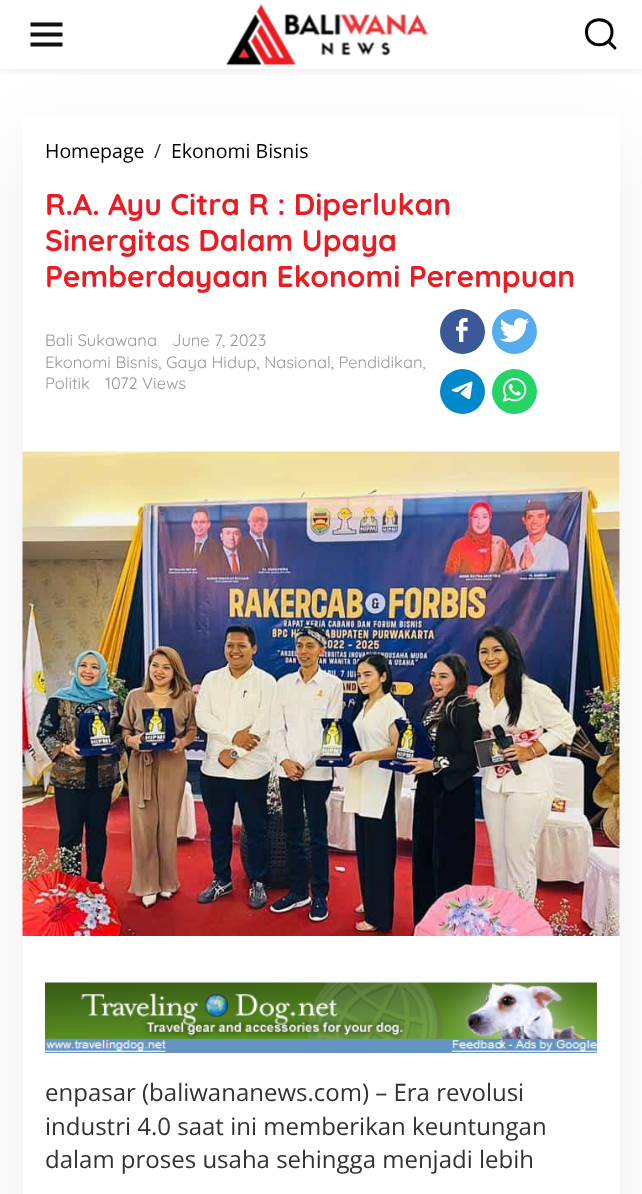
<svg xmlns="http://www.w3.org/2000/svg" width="642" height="1194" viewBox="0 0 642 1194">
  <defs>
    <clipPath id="clip1"><path d="M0 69h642v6H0z"/></clipPath>
  </defs>
  <rect width="100%" height="100%" fill="#fff"/>
  <g clip-path="url(#clip1)">
    <path d="M0 0h642v69H0z" fill="#0000001a" filter="blur(7.5px)"/>
  </g>
  <path d="M23 138h597v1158H23z" fill="#00000012" filter="blur(34px)"/>
  <path d="M30.5 22.5H62.5V26.5H30.5ZM30.5 32.5H62.5V36.5H30.5ZM30.5 42.5H62.5V46.5H30.5Z" fill="#111"/>
  <image x="226" y="4" width="202" height="62" href="img/1.png"/>
  <path d="M615 48L608.5 41.5M612 32C612 49 586.5 49 586.5 32C586.5 15.5 612 15.5 612 32Z" fill="none" stroke="#000" stroke-width="3" stroke-linecap="round"/>
  <path d="M23 114h597v1080H23z" fill="#fff"/>
  <circle cx="462.5" cy="331.5" r="22.5" fill="#3b5998"/>
  <image x="456" y="318" width="12" height="24" href="img/2.png"/>
  <circle cx="514.5" cy="331.5" r="22.5" fill="#55acee"/>
  <image x="500" y="318" width="29" height="24" href="img/3.png"/>
  <circle cx="462.5" cy="391.5" r="22.5" fill="#08c"/>
  <image x="451" y="381" width="22" height="18" href="img/4.png"/>
  <circle cx="514.5" cy="391.5" r="22.5" fill="#25d366"/>
  <image x="503" y="378" width="24" height="24" href="img/5.png"/>
  <image x="22" y="451" width="598" height="485" href="img/6.png"/>
  <image x="45" y="982" width="552" height="71" href="img/7.png"/>
  <text x="45" y="158" font-family="Open Sans" font-size="19.5" fill="#000">Homepage</text>
  <text x="154" y="158" font-family="Open Sans" font-size="19.5" fill="#323233">/</text>
  <text x="171" y="158" font-family="Open Sans" font-size="19.5" fill="#000">Ekonomi Bisnis</text>
  <g font-family="Quicksand" font-size="30" font-weight="bold" fill="#ea1c24">
    <text x="45" y="215">R.A. Ayu Citra R : Diperlukan</text>
    <text x="45" y="251">Sinergitas Dalam Upaya</text>
    <text x="45" y="287">Pemberdayaan Ekonomi Perempuan</text>
  </g>
  <g font-family="Quicksand" font-size="16.5" fill="#999">
    <text x="45" y="346">Bali Sukawana</text>
    <text x="172" y="346">June 7, 2023</text>
    <text x="45" y="368">Ekonomi Bisnis, Gaya Hidup, Nasional, Pendidikan,</text>
    <text x="45" y="389">Politik</text>
    <text x="105" y="389">1072 Views</text>
  </g>
  <g font-family="Open Sans" font-size="24" fill="#323233">
    <text x="45" y="1101">enpasar (baliwananews.com) – Era revolusi</text>
    <text x="45" y="1135">industri 4.0 saat ini memberikan keuntungan</text>
    <text x="45" y="1168">dalam proses usaha sehingga menjadi lebih</text>
  </g>
</svg>
